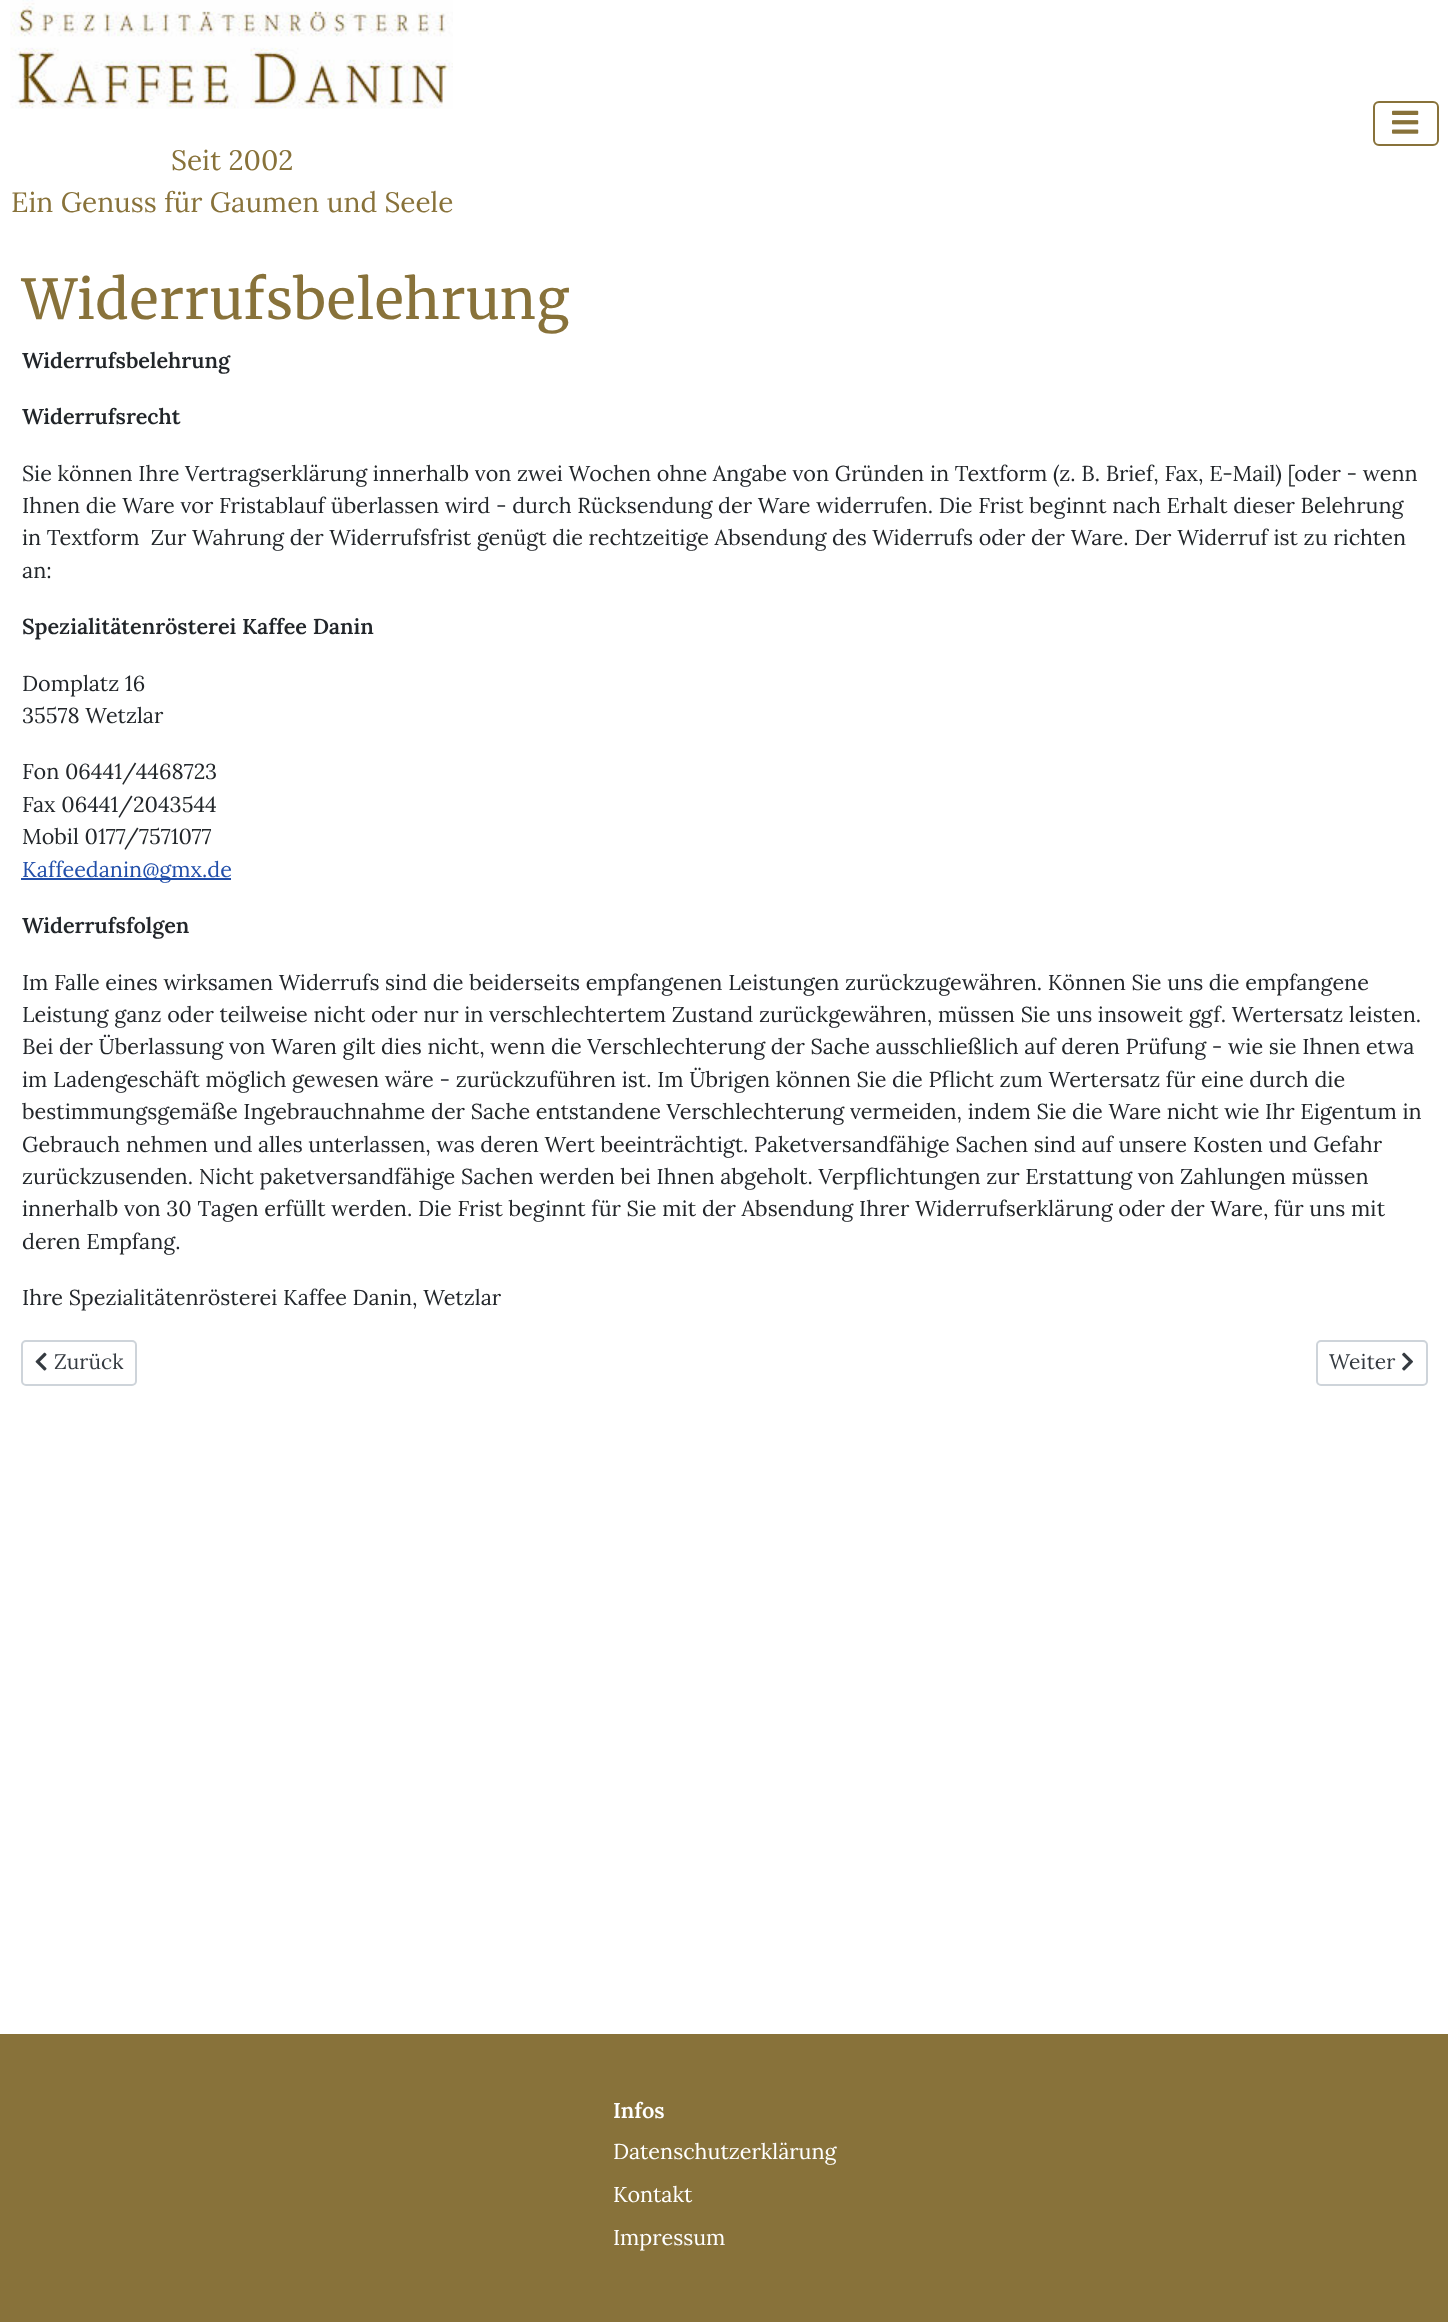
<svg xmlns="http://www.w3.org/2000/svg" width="1448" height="2322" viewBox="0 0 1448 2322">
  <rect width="100%" height="100%" fill="#fff"/>
  <rect x="1374" y="102" width="64" height="43" rx="5" fill="none" stroke="#88723a" stroke-width="2"/>
  <image x="1392" y="110" width="27" height="24" href="img/1.png"/>
  <image x="10" y="0" width="443" height="109" href="img/2.png"/>
  <path d="M21 878h210v2H21z" fill="#224faa"/>
  <rect x="22" y="1341" width="114" height="44" rx="4" fill="none" stroke="#ced4da" stroke-width="2"/>
  <image x="35" y="1352" width="12" height="19" href="img/3.png"/>
  <rect x="1317" y="1341" width="110" height="44" rx="4" fill="none" stroke="#ced4da" stroke-width="2"/>
  <image x="1402" y="1352" width="11" height="19" href="img/4.png"/>
  <path d="M0 2034h1448v288H0z" fill="#88723a"/>
  <g font-family="Lora" font-size="28" fill="#88723a">
    <text x="171" y="170">Seit 2002</text>
    <text x="11" y="212">Ein Genuss für Gaumen und Seele</text>
  </g>
  <text x="22" y="319" font-family="Merriweather" font-size="54.75" fill="#88723a">Widerrufsbelehrung</text>
  <g font-family="Lora" font-size="21.6" font-weight="600" fill="#22262a">
    <text x="22" y="368">Widerrufsbelehrung</text>
    <text x="22" y="424">Widerrufsrecht</text>
  </g>
  <g font-family="Lora" font-size="21.6" fill="#22262a">
    <text x="22" y="481">Sie können Ihre Vertragserklärung innerhalb von zwei Wochen ohne Angabe von Gründen in Textform (z. B. Brief, Fax, E-Mail) [oder - wenn</text>
    <text x="22" y="513">Ihnen die Ware vor Fristablauf überlassen wird - durch Rücksendung der Ware widerrufen. Die Frist beginnt nach Erhalt dieser Belehrung</text>
    <text x="22" y="545" xml:space="preserve">in Textform  Zur Wahrung der Widerrufsfrist genügt die rechtzeitige Absendung des Widerrufs oder der Ware. Der Widerruf ist zu richten</text>
    <text x="22" y="578">an:</text>
  </g>
  <text x="22" y="634" font-family="Lora" font-size="21.6" font-weight="600" fill="#22262a">Spezialitätenrösterei Kaffee Danin</text>
  <g font-family="Lora" font-size="21.6" fill="#22262a">
    <text x="22" y="691">Domplatz 16</text>
    <text x="22" y="723">35578 Wetzlar</text>
    <text x="22" y="779">Fon 06441/4468723</text>
    <text x="22" y="812">Fax 06441/2043544</text>
    <text x="22" y="844">Mobil 0177/7571077</text>
  </g>
  <text x="22" y="877" font-family="Lora" font-size="21.6" fill="#224faa">Kaffeedanin@gmx.de</text>
  <text x="22" y="933" font-family="Lora" font-size="21.6" font-weight="600" fill="#22262a">Widerrufsfolgen</text>
  <g font-family="Lora" font-size="21.6" fill="#22262a">
    <text x="22" y="990">Im Falle eines wirksamen Widerrufs sind die beiderseits empfangenen Leistungen zurückzugewähren. Können Sie uns die empfangene</text>
    <text x="22" y="1022">Leistung ganz oder teilweise nicht oder nur in verschlechtertem Zustand zurückgewähren, müssen Sie uns insoweit ggf. Wertersatz leisten.</text>
    <text x="22" y="1054">Bei der Überlassung von Waren gilt dies nicht, wenn die Verschlechterung der Sache ausschließlich auf deren Prüfung - wie sie Ihnen etwa</text>
    <text x="22" y="1087">im Ladengeschäft möglich gewesen wäre - zurückzuführen ist. Im Übrigen können Sie die Pflicht zum Wertersatz für eine durch die</text>
    <text x="22" y="1119">bestimmungsgemäße Ingebrauchnahme der Sache entstandene Verschlechterung vermeiden, indem Sie die Ware nicht wie Ihr Eigentum in</text>
    <text x="22" y="1152">Gebrauch nehmen und alles unterlassen, was deren Wert beeinträchtigt. Paketversandfähige Sachen sind auf unsere Kosten und Gefahr</text>
    <text x="22" y="1184">zurückzusenden. Nicht paketversandfähige Sachen werden bei Ihnen abgeholt. Verpflichtungen zur Erstattung von Zahlungen müssen</text>
    <text x="22" y="1216">innerhalb von 30 Tagen erfüllt werden. Die Frist beginnt für Sie mit der Absendung Ihrer Widerrufserklärung oder der Ware, für uns mit</text>
    <text x="22" y="1249">deren Empfang.</text>
    <text x="22" y="1305">Ihre Spezialitätenrösterei Kaffee Danin, Wetzlar</text>
  </g>
  <g font-family="Lora" font-size="21" fill="#353b41">
    <text x="54" y="1369">Zurück</text>
    <text x="1329" y="1369">Weiter</text>
  </g>
  <text x="613" y="2118" font-family="Lora" font-size="21.6" font-weight="600" fill="#fff">Infos</text>
  <g font-family="Lora" font-size="21.6" fill="#fff">
    <text x="613" y="2159">Datenschutzerklärung</text>
    <text x="613" y="2202">Kontakt</text>
    <text x="613" y="2245">Impressum</text>
  </g>
</svg>
